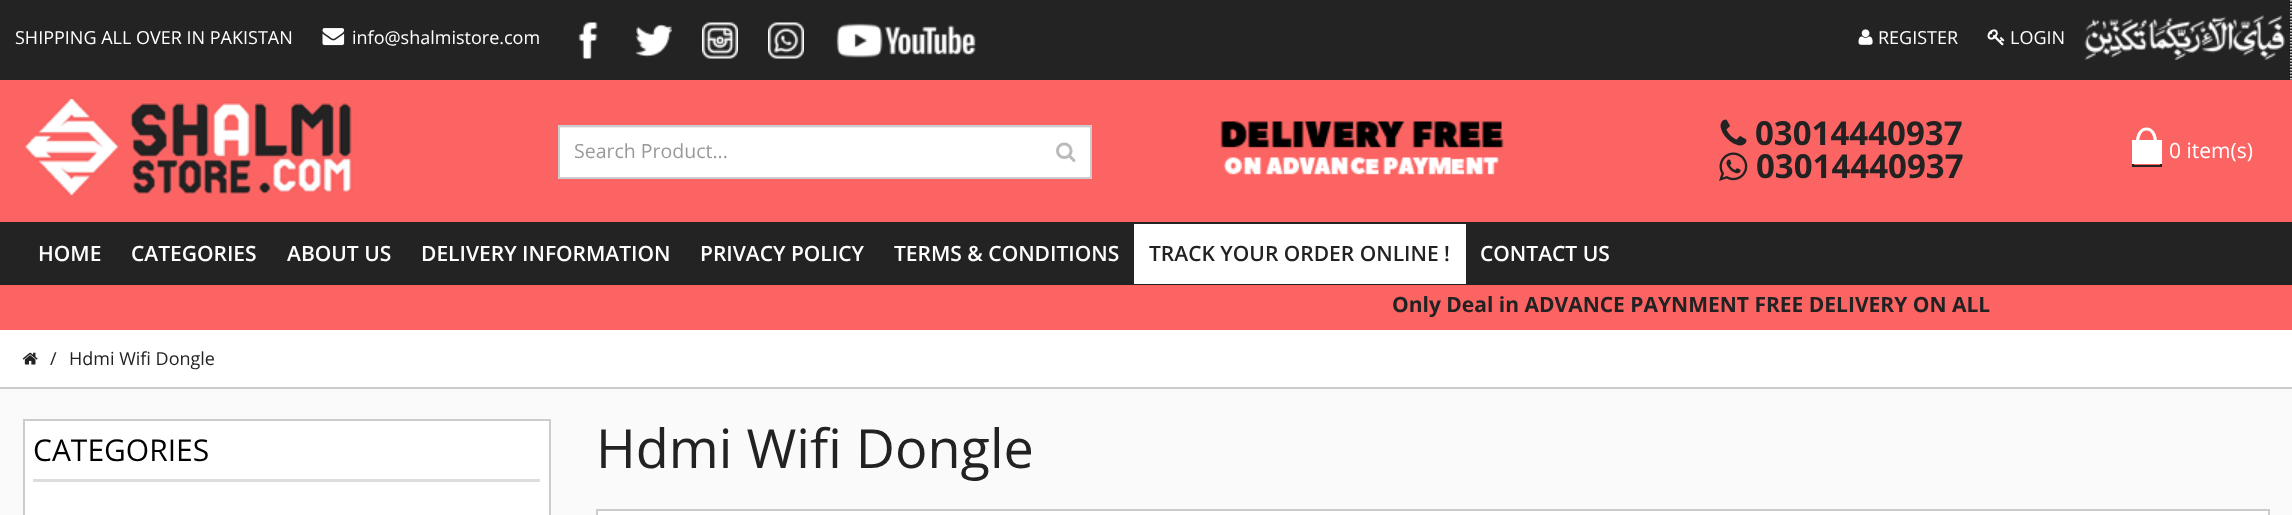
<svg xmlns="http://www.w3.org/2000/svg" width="2292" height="515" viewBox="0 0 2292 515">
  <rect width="100%" height="100%" fill="#fafafa"/>
  <path d="M0 0h2292v80H0z" fill="#232323"/>
  <image x="322" y="28" width="23" height="18" href="img/1.png"/>
  <image x="578" y="22" width="20" height="37" href="img/2.png"/>
  <image x="636" y="24" width="36" height="34" href="img/3.png"/>
  <image x="702" y="22" width="36" height="37" href="img/4.png"/>
  <image x="768" y="22" width="36" height="37" href="img/5.png"/>
  <image x="836" y="23" width="140" height="35" href="img/6.png"/>
  <path d="M2291 0V79.5" fill="none" stroke="#fff" stroke-width="1.5" stroke-dasharray="1.5 1.5"/>
  <image x="1858" y="29" width="15" height="16" href="img/7.png"/>
  <image x="1987" y="29" width="18" height="17" href="img/8.png"/>
  <image x="2084" y="15" width="201" height="45" href="img/9.png"/>
  <path d="M0 80h2292v142H0z" fill="#fc6463"/>
  <image x="25" y="99" width="328" height="96" href="img/10.png"/>
  <path d="M560 128h530v49H560z" fill="#fff"/>
  <path d="M560 127h531v1H560z" fill="#ececec"/>
  <path d="M559 126h532v52H559z" fill="none" stroke="#ccc" stroke-width="2"/>
  <image x="1056" y="142" width="20" height="20" href="img/11.png"/>
  <image x="1220" y="121" width="284" height="54" href="img/12.png"/>
  <image x="1720" y="119" width="27" height="27" href="img/13.png"/>
  <image x="1719" y="152" width="29" height="29" href="img/14.png"/>
  <path d="M2132 140h30v24H2132z" fill="#fff"/>
  <path d="M2146.5 127.5C2160.5 127.5 2160.5 156 2146.5 156C2132.5 156 2132.5 127.5 2146.5 127.5ZM2146.5 130.5C2157 130.5 2155.5 156 2146.5 156C2137.5 156 2136 130.5 2146.5 130.5Z" fill="#fff" fill-rule="evenodd"/>
  <path d="M2160 164h2v3H2160z" fill="#232323"/>
  <path d="M2132 165h30v2H2132z" fill="#232323"/>
  <path d="M2132 164h2v3H2132z" fill="#232323"/>
  <path d="M0 222h2292v63H0z" fill="#232323"/>
  <path d="M1134 224h332v60H1134z" fill="#fff"/>
  <path d="M0 285h2292v45H0z" fill="#fc6463"/>
  <path d="M0 330h2292v57H0z" fill="#fff"/>
  <path d="M0 387h2292v2H0z" fill="#ccc"/>
  <image x="22" y="352" width="16" height="13" href="img/15.png"/>
  <path d="M24 420h526v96H24z" fill="#fff" stroke="#ccc" stroke-width="2"/>
  <path d="M33 479h507v3H33z" fill="#ddd"/>
  <path d="M597 510h1672v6H597z" fill="#fff" stroke="#ccc" stroke-width="2"/>
  <g font-family="Open Sans" font-size="18" fill="#fff">
    <text x="15" y="44">SHIPPING ALL OVER IN PAKISTAN</text>
    <text x="352" y="44">info@shalmistore.com</text>
    <text x="1878" y="44">REGISTER</text>
    <text x="2010" y="44">LOGIN</text>
  </g>
  <text x="574" y="158" font-family="Open Sans" font-size="19.5" fill="#999">Search Product...</text>
  <g font-family="Open Sans" font-size="33" font-weight="bold" fill="#222">
    <text x="1755" y="145">03014440937</text>
    <text x="1756" y="178">03014440937</text>
  </g>
  <text x="2169" y="158" font-family="Open Sans" font-size="21" fill="#fff">0 item(s)</text>
  <g font-family="Open Sans" font-size="21" font-weight="600" fill="#fff">
    <text x="38" y="261">HOME</text>
    <text x="131" y="261">CATEGORIES</text>
    <text x="287" y="261">ABOUT US</text>
    <text x="421" y="261">DELIVERY INFORMATION</text>
    <text x="700" y="261">PRIVACY POLICY</text>
    <text x="894" y="261">TERMS &amp; CONDITIONS</text>
  </g>
  <text x="1149" y="261" font-family="Open Sans" font-size="21" font-weight="600" fill="#222">TRACK YOUR ORDER ONLINE !</text>
  <text x="1480" y="261" font-family="Open Sans" font-size="21" font-weight="600" fill="#fff">CONTACT US</text>
  <text x="1392" y="312" font-family="Open Sans" font-size="21" font-weight="bold" fill="#222">Only Deal in ADVANCE PAYNMENT FREE DELIVERY ON ALL</text>
  <g font-family="Open Sans" font-size="18" fill="#222">
    <text x="50" y="365">/</text>
    <text x="69" y="365">Hdmi Wifi Dongle</text>
  </g>
  <text x="33" y="461" font-family="Open Sans" font-size="30" fill="#000">CATEGORIES</text>
  <text x="596" y="468" font-family="Open Sans" font-size="54" fill="#222">Hdmi Wifi Dongle</text>
</svg>
